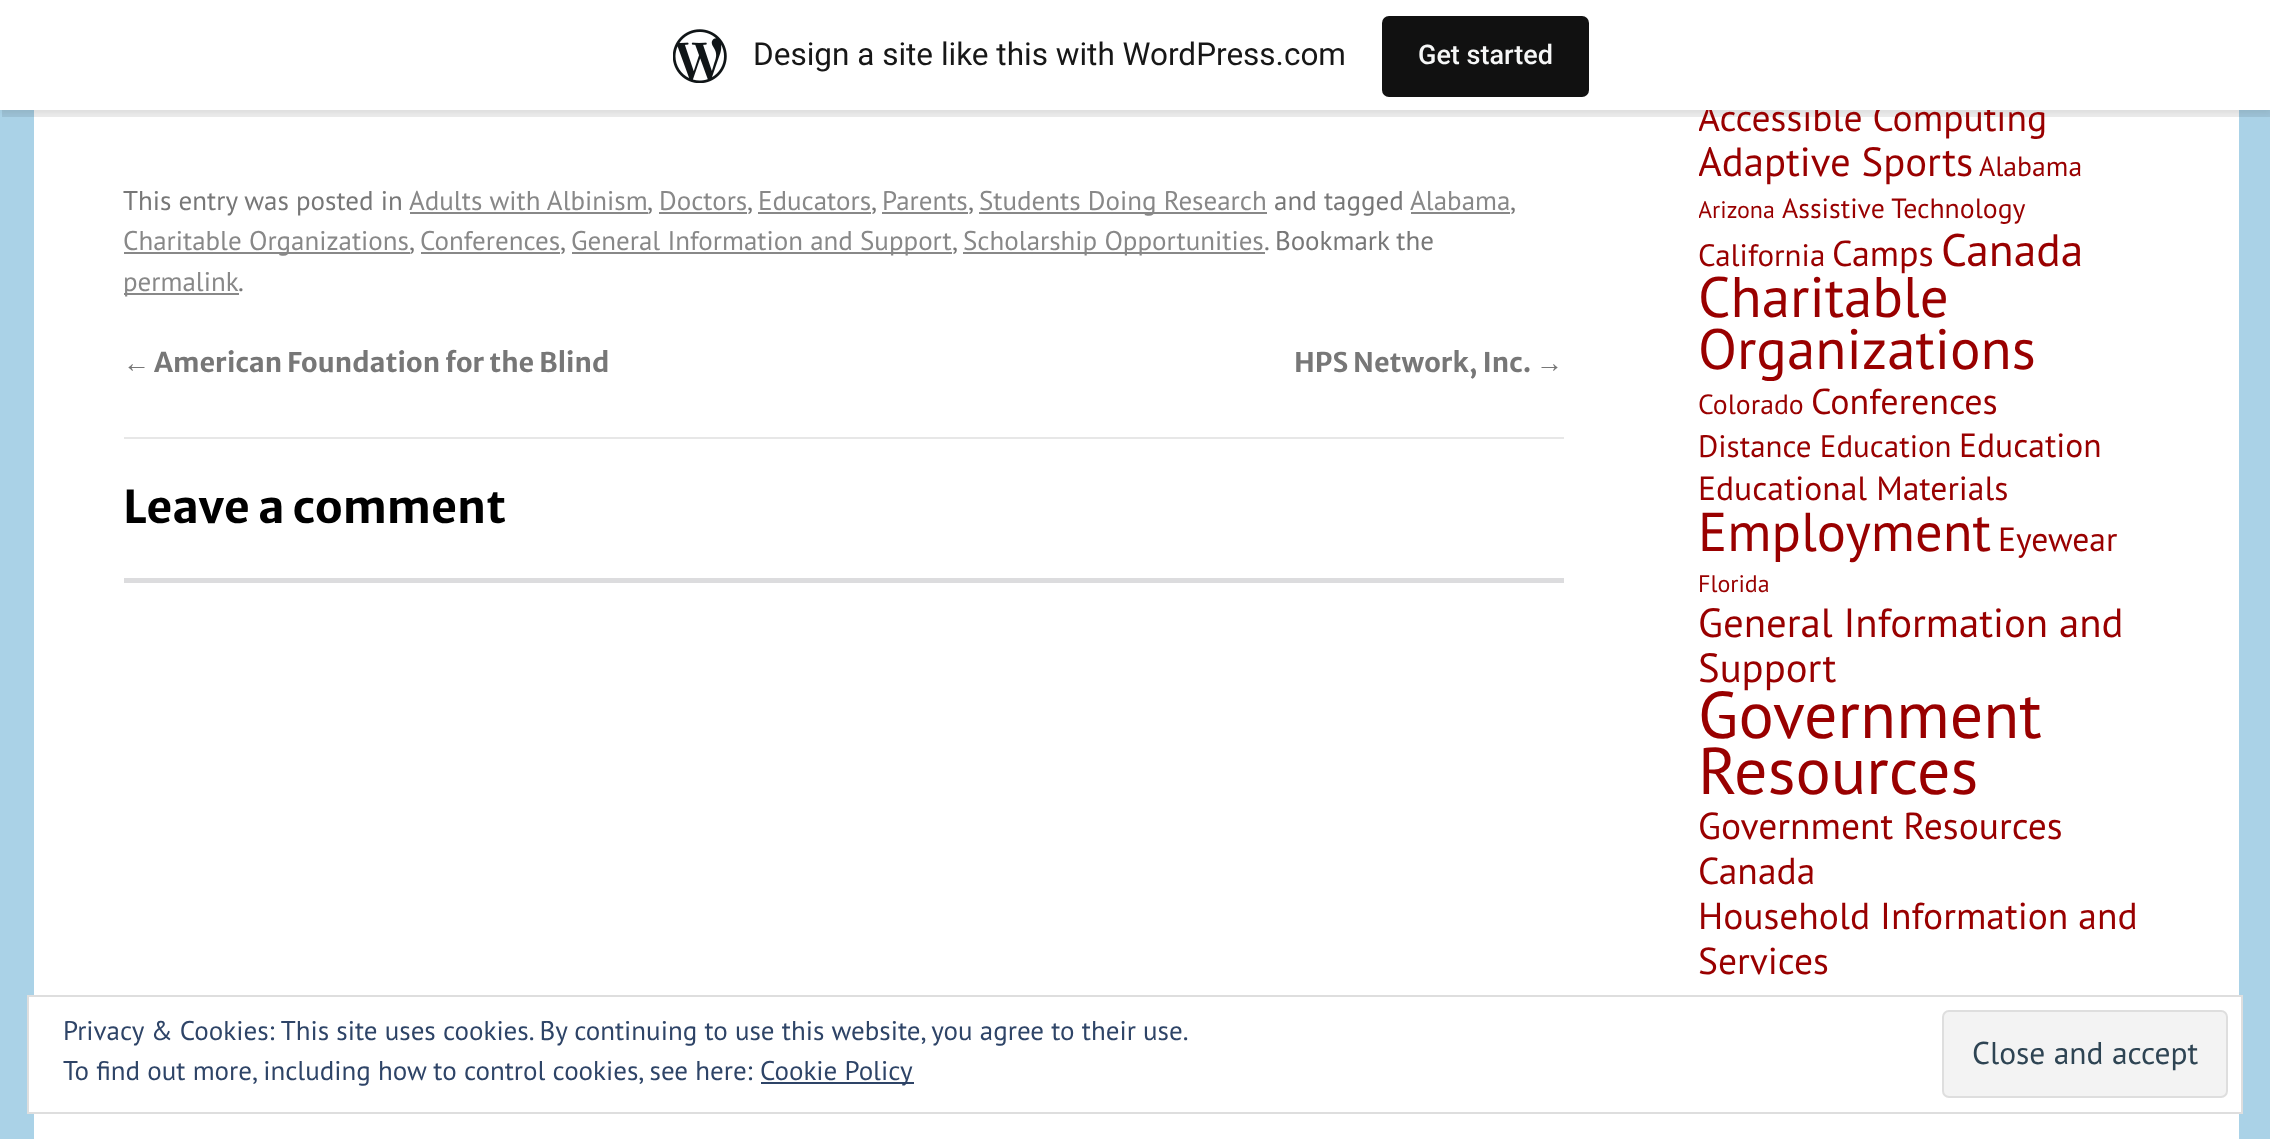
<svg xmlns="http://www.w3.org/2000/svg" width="2270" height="1139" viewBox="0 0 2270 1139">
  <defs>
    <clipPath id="clip1"><path d="M1699 0h495v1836H1699z"/></clipPath>
  </defs>
  <rect width="100%" height="100%" fill="#aad2e7"/>
  <path d="M34 110h2205v1029H34z" fill="#fff"/>
  <path d="M0 2h2270v111H0z" fill="#0000000d" filter="blur(2px)"/>
  <path d="M2 110V117H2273V7H2270V110Z" fill="#00000014"/>
  <path d="M410 212h238v2H410z" fill="#888"/>
  <path d="M659 212h88v2H659z" fill="#888"/>
  <path d="M758 212h113v2H758z" fill="#888"/>
  <path d="M882 212h86v2H882z" fill="#888"/>
  <path d="M979 212h288v2H979z" fill="#888"/>
  <path d="M1411 212h99v2H1411z" fill="#888"/>
  <path d="M124 252h286v2H124z" fill="#888"/>
  <path d="M421 252h139v2H421z" fill="#888"/>
  <path d="M572 252h380v2H572z" fill="#888"/>
  <path d="M963 252h302v2H963z" fill="#888"/>
  <path d="M124 293h115v2H124z" fill="#888"/>
  <path d="M124 437h1440v2H124z" fill="#e7e7e7"/>
  <path d="M124 578h1440v5H124z" fill="#dcdcde"/>
  <path d="M28 996h2214v117H28z" fill="#fff" stroke="#dedede" stroke-width="2"/>
  <path d="M761 1082h153v2H761z" fill="#2e4467"/>
  <rect x="1943" y="1011" width="284" height="86" rx="6" fill="#f3f3f3" stroke="#dedede" stroke-width="2"/>
  <text x="123" y="210" font-family="PT Sans" font-size="27" fill="#777">This entry was posted in</text>
  <text x="409" y="210" font-family="PT Sans" font-size="27" fill="#888">Adults with Albinism</text>
  <text x="647" y="210" font-family="PT Sans" font-size="27" fill="#777">,</text>
  <text x="659" y="210" font-family="PT Sans" font-size="27" fill="#888">Doctors</text>
  <text x="747" y="210" font-family="PT Sans" font-size="27" fill="#777">,</text>
  <text x="758" y="210" font-family="PT Sans" font-size="27" fill="#888">Educators</text>
  <text x="871" y="210" font-family="PT Sans" font-size="27" fill="#777">,</text>
  <text x="882" y="210" font-family="PT Sans" font-size="27" fill="#888">Parents</text>
  <text x="968" y="210" font-family="PT Sans" font-size="27" fill="#777">,</text>
  <text x="979" y="210" font-family="PT Sans" font-size="27" fill="#888">Students Doing Research</text>
  <text x="1274" y="210" font-family="PT Sans" font-size="27" fill="#777">and tagged</text>
  <text x="1410" y="210" font-family="PT Sans" font-size="27" fill="#888">Alabama</text>
  <text x="1510" y="210" font-family="PT Sans" font-size="27" fill="#777">,</text>
  <text x="123" y="250" font-family="PT Sans" font-size="27" fill="#888">Charitable Organizations</text>
  <text x="409" y="250" font-family="PT Sans" font-size="27" fill="#777">,</text>
  <text x="420" y="250" font-family="PT Sans" font-size="27" fill="#888">Conferences</text>
  <text x="560" y="250" font-family="PT Sans" font-size="27" fill="#777">,</text>
  <text x="571" y="250" font-family="PT Sans" font-size="27" fill="#888">General Information and Support</text>
  <text x="952" y="250" font-family="PT Sans" font-size="27" fill="#777">,</text>
  <text x="963" y="250" font-family="PT Sans" font-size="27" fill="#888">Scholarship Opportunities</text>
  <text x="1264" y="250" font-family="PT Sans" font-size="27" fill="#777">. Bookmark the</text>
  <text x="123" y="291" font-family="PT Sans" font-size="27" fill="#888">permalink</text>
  <text x="238" y="291" font-family="PT Sans" font-size="27" fill="#777">.</text>
  <text x="123" y="372" font-family="Liberation Sans" font-size="27" font-weight="bold" fill="#777">←</text>
  <g font-family="Merriweather Sans" font-size="27" font-weight="bold" fill="#777">
    <text x="154" y="372">American Foundation for the Blind</text>
    <text x="1294" y="372">HPS Network, Inc.</text>
  </g>
  <text x="1536" y="372" font-family="Liberation Sans" font-size="27" font-weight="bold" fill="#777">→</text>
  <text x="123" y="523" font-family="Merriweather Sans" font-size="45" font-weight="bold" fill="#000">Leave a comment</text>
  <g clip-path="url(#clip1)">
    <text x="1698" y="131" font-family="PT Sans" font-size="37.5" fill="#900">Accessible Computing</text>
  </g>
  <path d="M0 0h2270v110H0z" fill="#fff"/>
  <image x="673" y="29" width="54" height="54" href="img/1.png"/>
  <text x="753" y="65" font-family="Roboto" font-size="31.5" fill="#171717">Design a site like this with WordPress.com</text>
  <rect x="1382" y="16" width="207" height="81" rx="7" fill="#111"/>
  <text x="1418" y="64" font-family="Roboto" font-size="27" font-weight="500" fill="#f6f7f7">Get started</text>
  <g clip-path="url(#clip1)">
    <text x="1698" y="176" font-family="PT Sans" font-size="40.75" fill="#900">Adaptive Sports</text>
  </g>
  <text x="1979" y="176" font-family="PT Sans" font-size="27.75" fill="#900">Alabama</text>
  <g clip-path="url(#clip1)">
    <text x="1698" y="218" font-family="PT Sans" font-size="24" fill="#900">Arizona</text>
  </g>
  <text x="1782" y="218" font-family="PT Sans" font-size="27.75" fill="#900">Assistive Technology</text>
  <text x="1698" y="266" font-family="PT Sans" font-size="31" fill="#900">California</text>
  <text x="1832" y="266" font-family="PT Sans" font-size="36" fill="#900">Camps</text>
  <text x="1941" y="266" font-family="PT Sans" font-size="45.5" fill="#900">Canada</text>
  <g font-family="PT Sans" font-size="57" fill="#900">
    <text x="1698" y="317">Charitable</text>
    <text x="1698" y="369">Organizations</text>
  </g>
  <text x="1698" y="414" font-family="PT Sans" font-size="27.75" fill="#900">Colorado</text>
  <text x="1811" y="414" font-family="PT Sans" font-size="36" fill="#900">Conferences</text>
  <text x="1698" y="457" font-family="PT Sans" font-size="31" fill="#900">Distance Education</text>
  <g font-family="PT Sans" font-size="33.6" fill="#900">
    <text x="1959" y="457">Education</text>
    <text x="1698" y="500">Educational Materials</text>
  </g>
  <text x="1698" y="551" font-family="PT Sans" font-size="54.5" fill="#900">Employment</text>
  <text x="1998" y="551" font-family="PT Sans" font-size="33.6" fill="#900">Eyewear</text>
  <text x="1698" y="592" font-family="PT Sans" font-size="24" fill="#900">Florida</text>
  <g font-family="PT Sans" font-size="40.75" fill="#900">
    <text x="1698" y="637">General Information and</text>
    <text x="1698" y="682">Support</text>
  </g>
  <g font-family="PT Sans" font-size="66" fill="#900">
    <text x="1698" y="738">Government</text>
    <text x="1698" y="794">Resources</text>
  </g>
  <g font-family="PT Sans" font-size="37.5" fill="#900">
    <text x="1698" y="839">Government Resources</text>
    <text x="1698" y="884">Canada</text>
    <text x="1698" y="929">Household Information and</text>
    <text x="1698" y="974">Services</text>
  </g>
  <g font-family="PT Sans" font-size="27" fill="#2e4467">
    <text x="63" y="1040">Privacy &amp; Cookies: This site uses cookies. By continuing to use this website, you agree to their use.</text>
    <text x="63" y="1080">To find out more, including how to control cookies, see here:</text>
    <text x="760" y="1080">Cookie Policy</text>
  </g>
  <text x="1972" y="1064" font-family="PT Sans" font-size="31.5" fill="#2e4453">Close and accept</text>
</svg>
